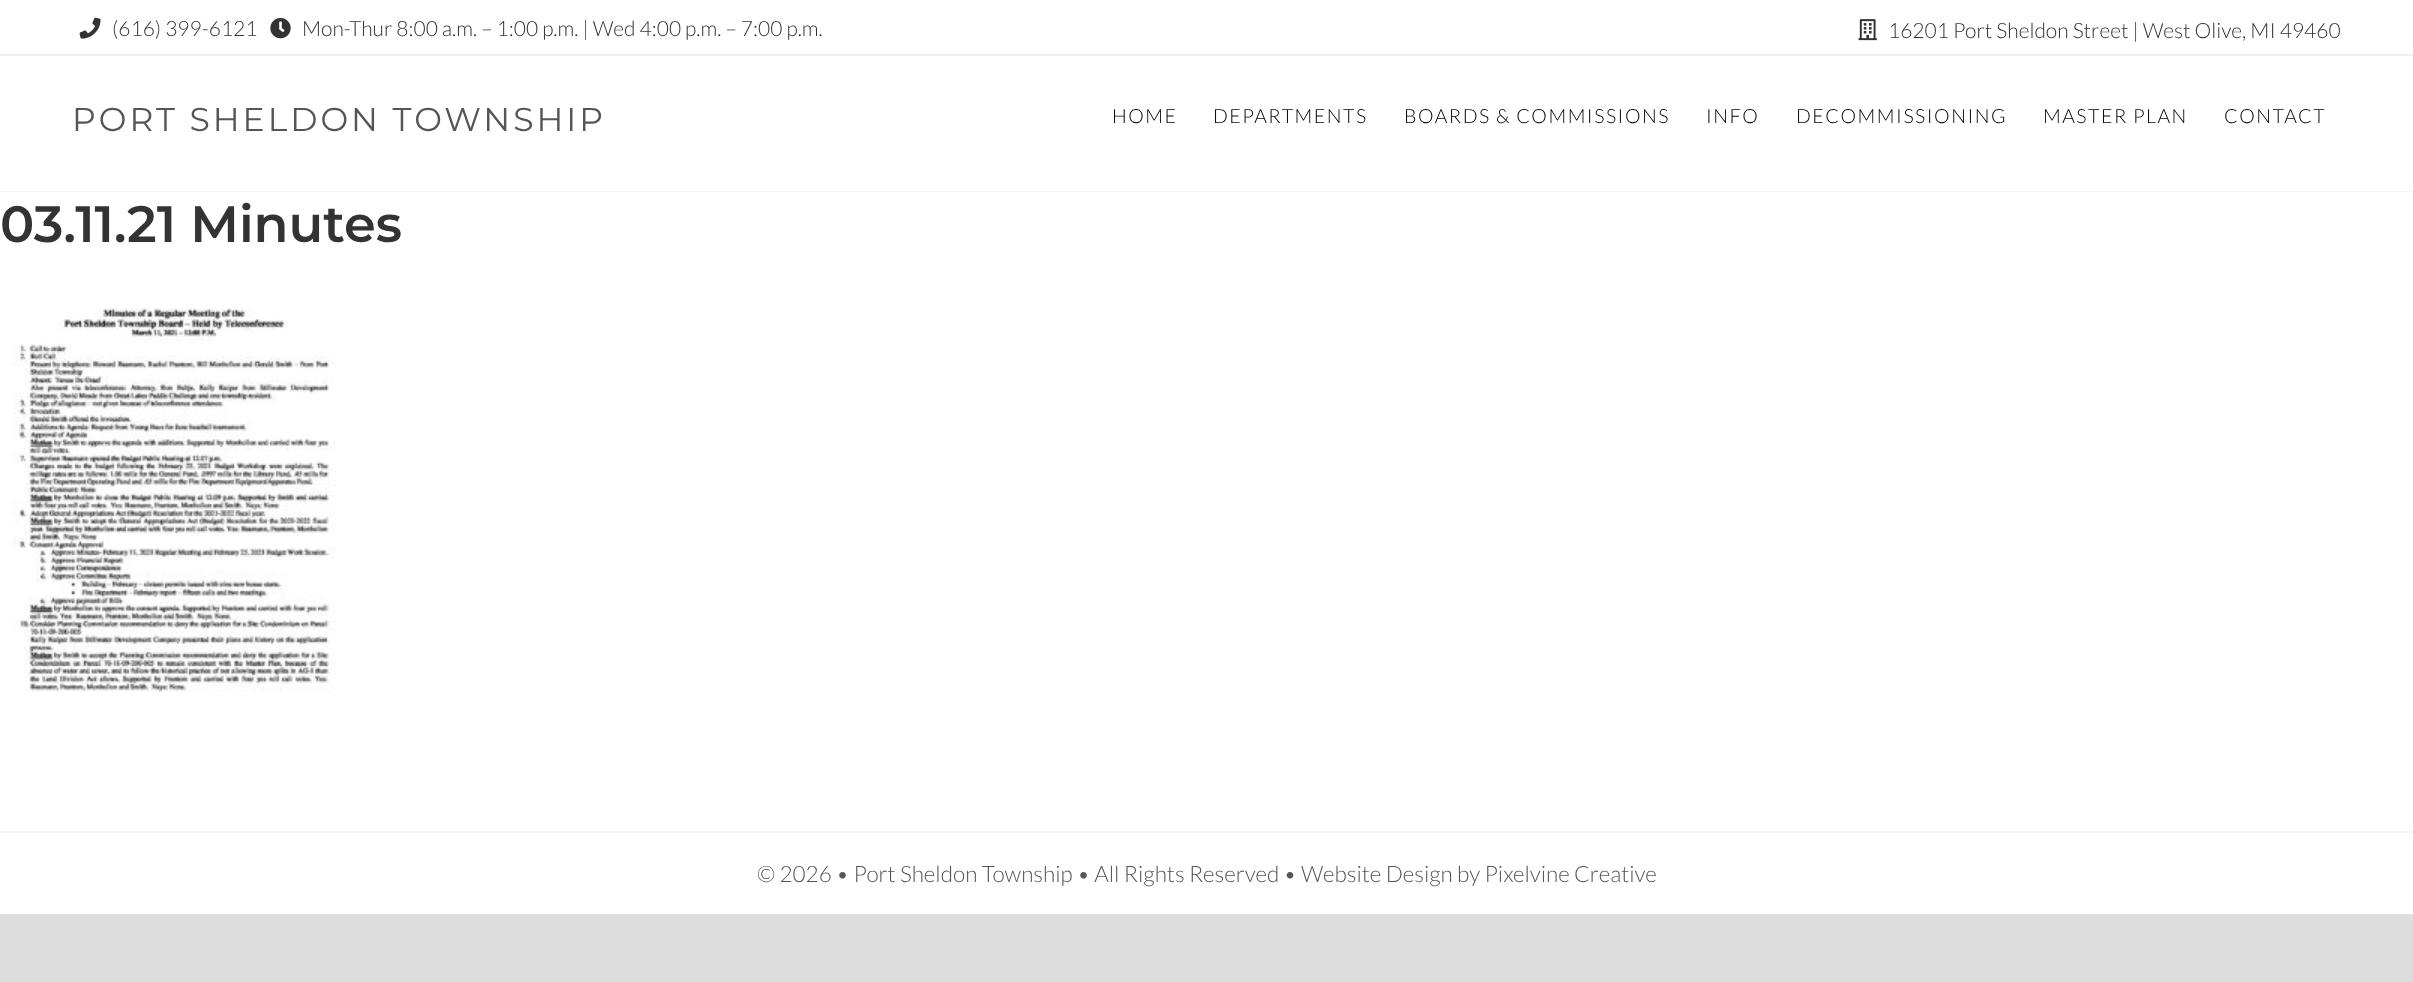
<svg xmlns="http://www.w3.org/2000/svg" width="2413" height="982" viewBox="0 0 2413 982">
  <rect width="100%" height="100%" fill="#ddd"/>
  <path d="M0 0h2413v914H0z" fill="#fff"/>
  <path d="M0 54h2413v2H0z" fill="#eee"/>
  <image x="79" y="17" width="22" height="22" href="img/1.png"/>
  <image x="270" y="18" width="21" height="21" href="img/2.png"/>
  <image x="1858" y="19" width="19" height="22" href="img/3.png"/>
  <path d="M0 191h2413v1H0z" fill="#f5f5f5"/>
  <image x="12" y="307" width="324" height="385" href="img/4.png"/>
  <path d="M0 831h2413v2H0z" fill="#f5f5f5"/>
  <g font-family="Lato" font-size="21" font-weight="300" fill="#333">
    <text x="112" y="36">(616) 399-6121</text>
    <text x="302" y="36">Mon-Thur 8:00 a.m. – 1:00 p.m. | Wed 4:00 p.m. – 7:00 p.m.</text>
    <text x="1888" y="38">16201 Port Sheldon Street | West Olive, MI 49460</text>
  </g>
  <text x="72" y="131" font-family="Montserrat" font-size="33" letter-spacing="3" fill="#555">PORT SHELDON TOWNSHIP</text>
  <g font-family="Lato" font-size="19.5" font-weight="300" letter-spacing="1.5" fill="#000">
    <text x="1112" y="123">HOME</text>
    <text x="1213" y="123">DEPARTMENTS</text>
    <text x="1404" y="123">BOARDS &amp; COMMISSIONS</text>
    <text x="1706" y="123">INFO</text>
    <text x="1796" y="123">DECOMMISSIONING</text>
    <text x="2043" y="123">MASTER PLAN</text>
    <text x="2224" y="123">CONTACT</text>
  </g>
  <text x="0" y="242" font-family="Montserrat" font-size="51" font-weight="600" fill="#333">03.11.21 Minutes</text>
  <text x="757" y="882" font-family="Lato" font-size="22.5" font-weight="300" fill="#555">© 2026 • Port Sheldon Township • All Rights Reserved • Website Design by Pixelvine Creative</text>
</svg>
